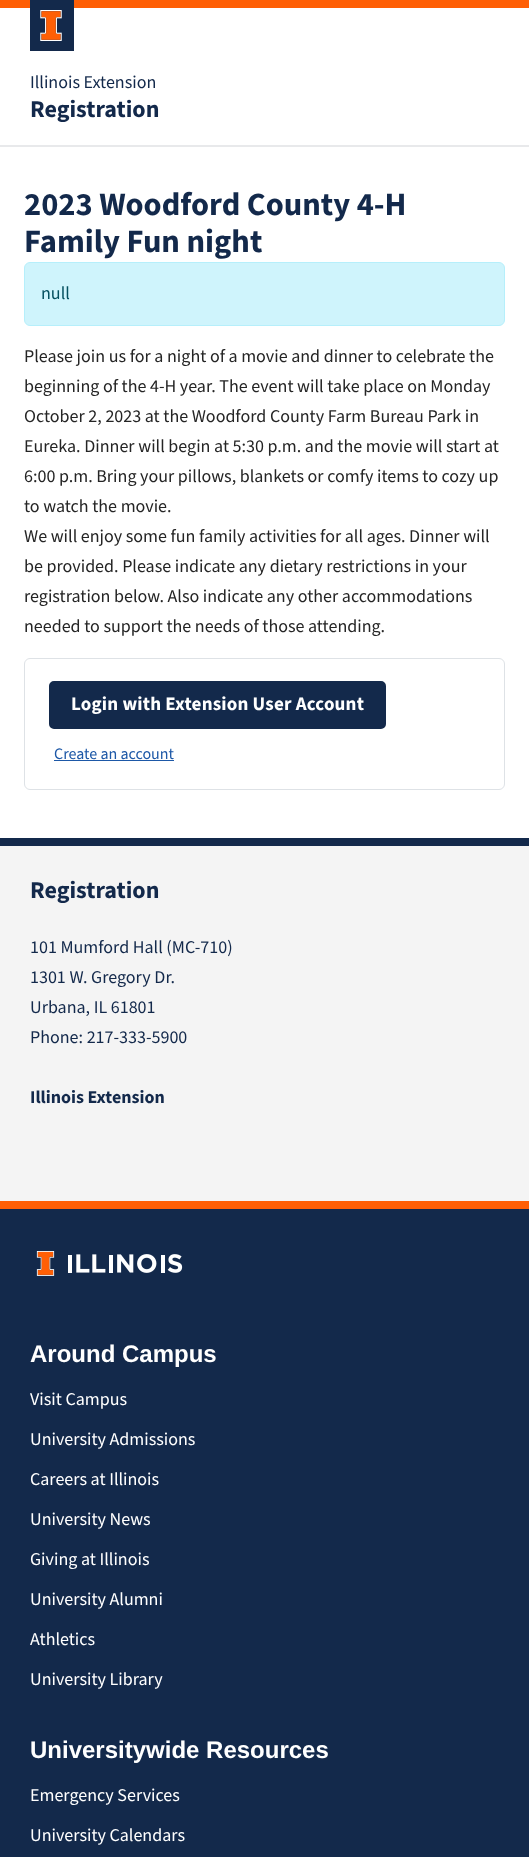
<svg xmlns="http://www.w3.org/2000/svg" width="529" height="1857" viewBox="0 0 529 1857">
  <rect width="100%" height="100%" fill="#fff"/>
  <path d="M0 0h529v8H0z" fill="#ff5f05"/>
  <path d="M0 145h529v2H0z" fill="#e8e9eb"/>
  <path d="M30 0h44v51H30z" fill="#13294b"/>
  <image x="40" y="10" width="22" height="31" href="img/1.png"/>
  <rect x="24.5" y="262.5" width="480" height="63" rx="5.5" fill="#cff4fc" stroke="#b6effb"/>
  <rect x="24.5" y="658.5" width="480" height="131" rx="5.5" fill="none" stroke="#dee2e6"/>
  <rect x="50" y="682" width="335" height="46" rx="4" fill="#13294b" stroke="#13294b" stroke-width="2"/>
  <path d="M54 760h120v1H54z" fill="#1d58a7"/>
  <path d="M0 846h529v355H0z" fill="#f4f4f4"/>
  <path d="M0 838h529v8H0z" fill="#13294b"/>
  <path d="M0 1209h529v648H0z" fill="#13294b"/>
  <path d="M0 1201h529v8H0z" fill="#ff5f05"/>
  <image x="36" y="1251" width="147" height="25" href="img/2.png"/>
  <text x="30" y="88" font-family="Source Sans Pro" font-size="18" fill="#13294b">Illinois Extension</text>
  <text x="30" y="117" font-family="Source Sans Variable" font-size="24" font-weight="bold" fill="#13294b">Registration</text>
  <g font-family="Source Sans Variable" font-size="32.5" font-weight="bold" fill="#13294b">
    <text x="24" y="215">2023 Woodford County 4-H</text>
    <text x="24" y="252">Family Fun night</text>
  </g>
  <text x="41" y="299" font-family="Source Sans Pro" font-size="18" fill="#055160">null</text>
  <g font-family="Source Sans Pro" font-size="18" fill="#252525">
    <text x="24" y="362">Please join us for a night of a movie and dinner to celebrate the</text>
    <text x="24" y="392">beginning of the 4-H year. The event will take place on Monday</text>
    <text x="24" y="422">October 2, 2023 at the Woodford County Farm Bureau Park in</text>
    <text x="24" y="452">Eureka. Dinner will begin at 5:30 p.m. and the movie will start at</text>
    <text x="24" y="482">6:00 p.m. Bring your pillows, blankets or comfy items to cozy up</text>
    <text x="24" y="512">to watch the movie.</text>
    <text x="24" y="542">We will enjoy some fun family activities for all ages. Dinner will</text>
    <text x="24" y="572">be provided. Please indicate any dietary restrictions in your</text>
    <text x="24" y="602">registration below. Also indicate any other accommodations</text>
    <text x="24" y="632">needed to support the needs of those attending.</text>
  </g>
  <text x="71" y="710" font-family="Source Sans Variable" font-size="19" font-weight="bold" letter-spacing="0.2" fill="#fff">Login with Extension User Account</text>
  <text x="54" y="759" font-family="Source Sans Pro" font-size="16" fill="#1d58a7">Create an account</text>
  <text x="30" y="898" font-family="Source Sans Variable" font-size="24" font-weight="bold" fill="#13294b">Registration</text>
  <g font-family="Source Sans Pro" font-size="18" fill="#13294b">
    <text x="30" y="953">101 Mumford Hall (MC-710)</text>
    <text x="30" y="983">1301 W. Gregory Dr.</text>
    <text x="30" y="1013">Urbana, IL 61801</text>
    <text x="30" y="1043">Phone: 217-333-5900</text>
  </g>
  <text x="30" y="1103" font-family="Source Sans Variable" font-size="18" font-weight="bold" fill="#13294b">Illinois Extension</text>
  <text x="30" y="1362" font-family="Liberation Sans" font-size="24" font-weight="bold" fill="#fff">Around Campus</text>
  <g font-family="Source Sans Pro" font-size="18" fill="#fff">
    <text x="30" y="1405">Visit Campus</text>
    <text x="30" y="1445">University Admissions</text>
    <text x="30" y="1485">Careers at Illinois</text>
    <text x="30" y="1525">University News</text>
    <text x="30" y="1565">Giving at Illinois</text>
    <text x="30" y="1605">University Alumni</text>
    <text x="30" y="1645">Athletics</text>
    <text x="30" y="1685">University Library</text>
  </g>
  <text x="30" y="1758" font-family="Liberation Sans" font-size="24" font-weight="bold" fill="#fff">Universitywide Resources</text>
  <g font-family="Source Sans Pro" font-size="18" fill="#fff">
    <text x="30" y="1801">Emergency Services</text>
    <text x="30" y="1841">University Calendars</text>
  </g>
</svg>
